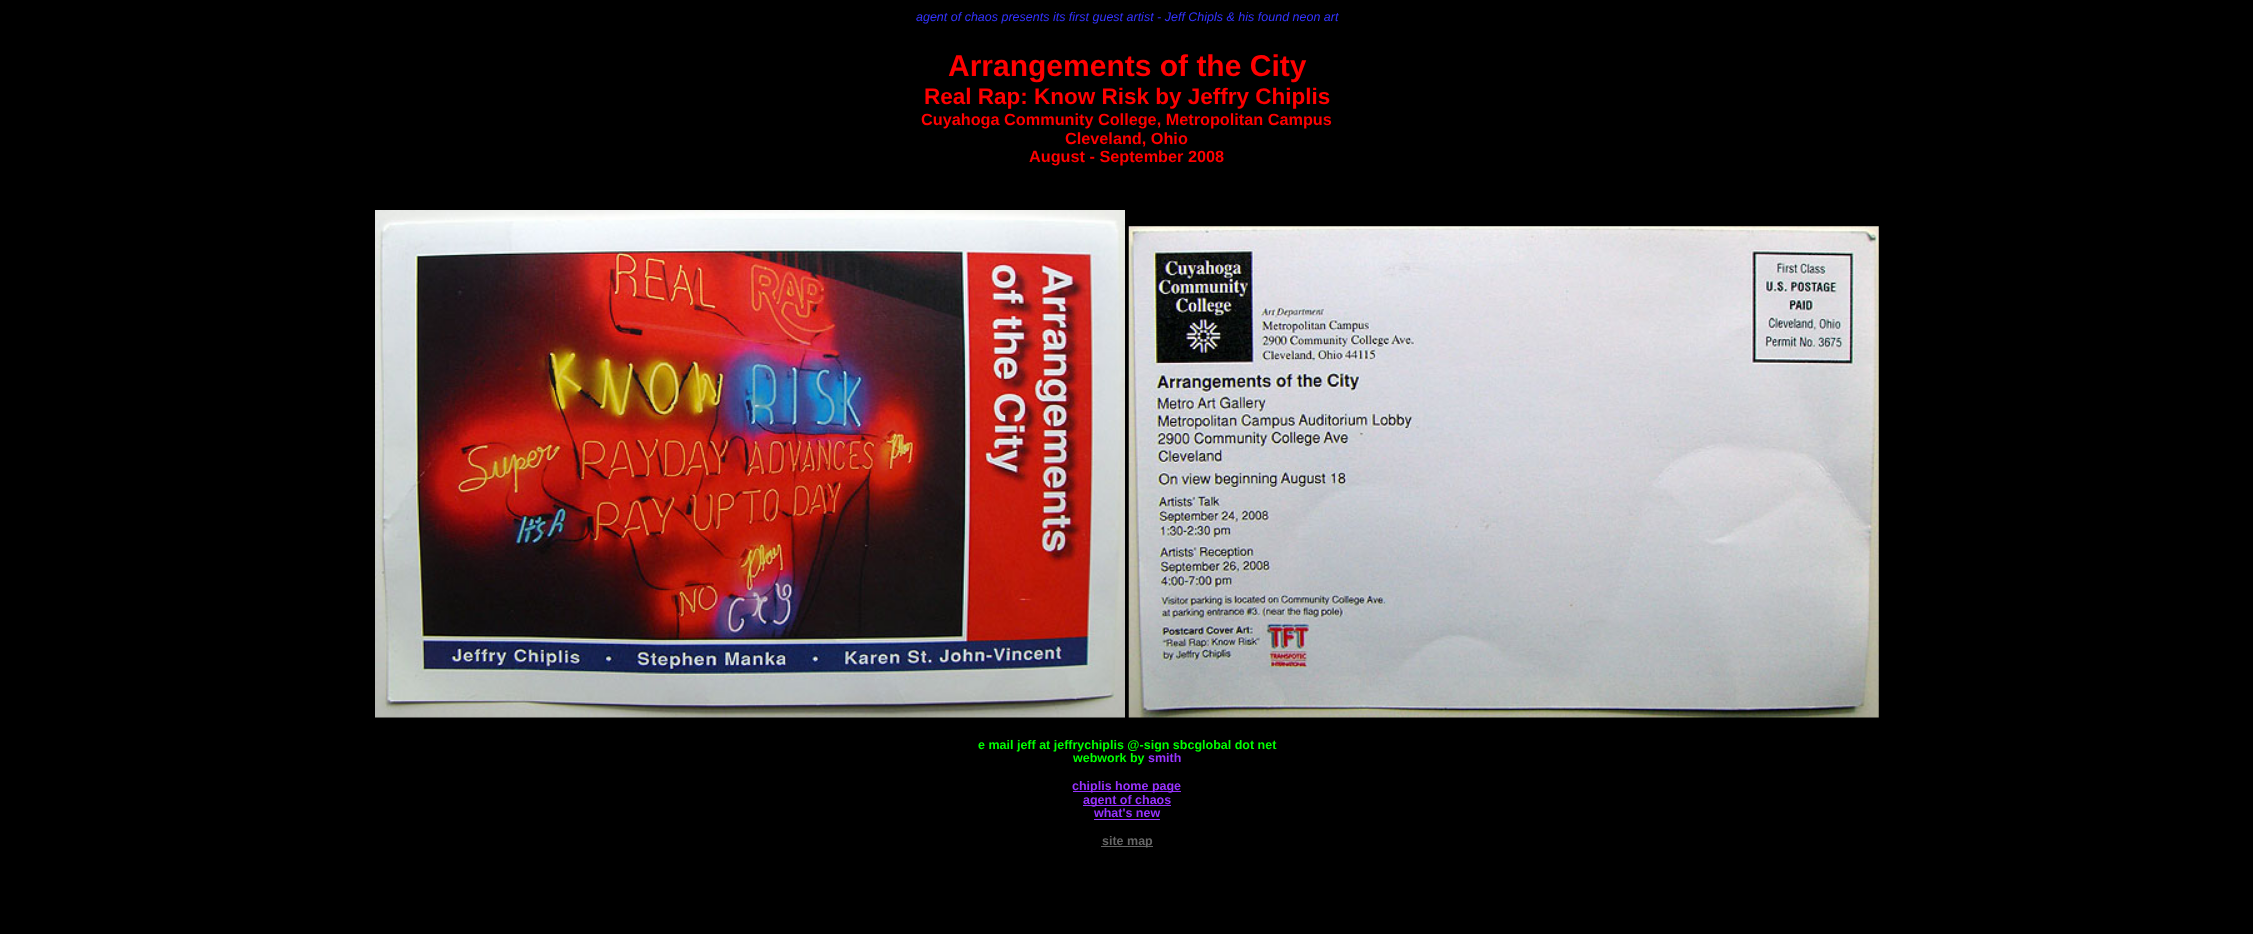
<svg xmlns="http://www.w3.org/2000/svg" width="2253" height="934" viewBox="0 0 2253 934">
  <rect width="100%" height="100%" fill="#000"/>
  <image x="375" y="210" width="750" height="508" href="img/1.png"/>
  <image x="1128" y="226" width="751" height="492" href="img/2.png"/>
  <path d="M1073 791h108v1H1073z" fill="#93f"/>
  <path d="M1083 805h88v1H1083z" fill="#93f"/>
  <path d="M1094 819h66v1H1094z" fill="#93f"/>
  <path d="M1101 846h52v1H1101z" fill="#666"/>
  <text x="916" y="21" font-family="Liberation Sans" font-size="12.5" font-style="italic" fill="#33f">agent of chaos presents its first guest artist - Jeff Chipls &amp; his found neon art</text>
  <text x="948" y="76" font-family="Liberation Sans" font-size="30" font-weight="bold" fill="#f00">Arrangements of the City</text>
  <text x="924" y="104" font-family="Liberation Sans" font-size="22.5" font-weight="bold" fill="#f00">Real Rap: Know Risk by Jeffry Chiplis</text>
  <g font-family="Liberation Sans" font-size="16.25" font-weight="bold" fill="#f00">
    <text x="921" y="125">Cuyahoga Community College, Metropolitan Campus</text>
    <text x="1065" y="144">Cleveland, Ohio</text>
    <text x="1029" y="162">August - September 2008</text>
  </g>
  <g font-family="Liberation Sans" font-size="12.5" font-weight="bold" fill="#0f0">
    <text x="978" y="749">e mail jeff at jeffrychiplis @-sign sbcglobal dot net</text>
    <text x="1073" y="762">webwork by</text>
  </g>
  <g font-family="Liberation Sans" font-size="12.5" font-weight="bold" fill="#93f">
    <text x="1148" y="762">smith</text>
    <text x="1072" y="790">chiplis home page</text>
    <text x="1083" y="804">agent of chaos</text>
    <text x="1094" y="817">what's new</text>
  </g>
  <text x="1102" y="845" font-family="Liberation Sans" font-size="12.5" font-weight="bold" fill="#666">site map</text>
</svg>
